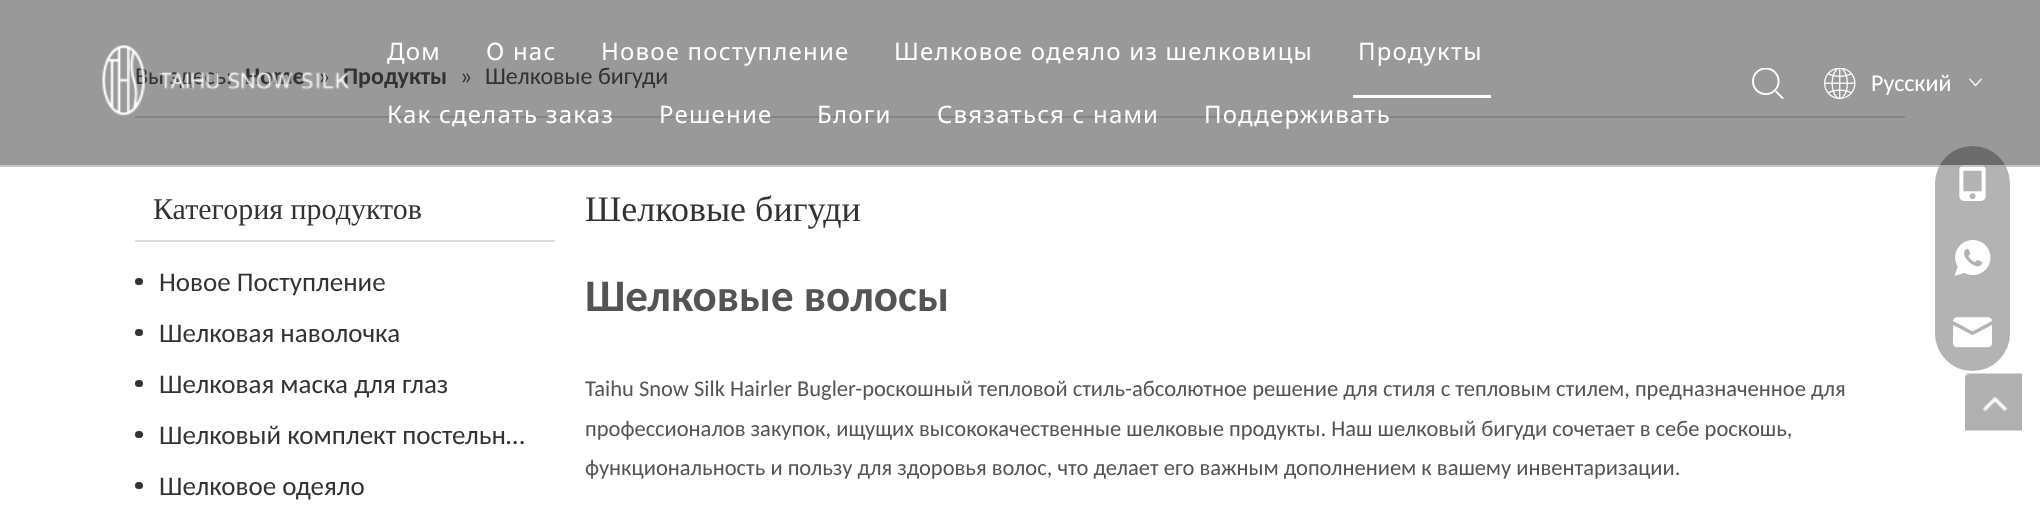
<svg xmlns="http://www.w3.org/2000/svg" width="2040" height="514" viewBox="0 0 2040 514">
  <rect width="100%" height="100%" fill="#fff"/>
  <path d="M135 116h1770v2H135z" fill="#ddd"/>
  <path d="M135 240h420v2H135z" fill="#ddd"/>
  <rect x="135" y="278" width="8" height="7" rx="3.5" fill="#333"/>
  <rect x="135" y="329" width="8" height="7" rx="3.5" fill="#333"/>
  <rect x="135" y="380" width="8" height="7" rx="3.5" fill="#333"/>
  <rect x="135" y="431" width="8" height="7" rx="3.5" fill="#333"/>
  <rect x="135" y="482" width="8" height="7" rx="3.5" fill="#333"/>
  <rect x="1935" y="146" width="75" height="225" rx="37.5" fill="#b3b3b3"/>
  <image x="1959" y="165" width="27" height="36" href="img/5.png"/>
  <image x="1954" y="240" width="37" height="36" href="img/6.png"/>
  <image x="1953" y="317" width="39" height="31" href="img/7.png"/>
  <image x="1965" y="373" width="57" height="58" href="img/8.png"/>
  <text x="135" y="84" font-family="Carlito" font-size="24" fill="#545454">Вы здесь:</text>
  <text x="245" y="84" font-family="Carlito" font-size="24" font-weight="bold" fill="#545454">Home</text>
  <text x="318" y="84" font-family="Carlito" font-size="24" fill="#545454">»</text>
  <text x="343" y="84" font-family="Carlito" font-size="24" font-weight="bold" fill="#545454">Продукты</text>
  <g font-family="Carlito" font-size="24" fill="#545454">
    <text x="460" y="84">»</text>
    <text x="485" y="84">Шелковые бигуди</text>
  </g>
  <path d="M0 0h2040v167H0z" fill="#00000066"/>
  <image x="1969" y="78" width="13" height="9" href="img/4.png"/>
  <image x="1824" y="68" width="32" height="31" href="img/3.png"/>
  <text x="1871" y="91" font-family="Carlito" font-size="24" fill="#fff">Pусский</text>
  <image x="1752" y="68" width="32" height="31" href="img/2.png"/>
  <g font-family="Noto Sans" font-size="24" letter-spacing="1.2" fill="#fff">
    <text x="1204" y="123">Поддерживать</text>
    <text x="937" y="123">Связаться с нами</text>
    <text x="817" y="123">Блоги</text>
    <text x="659" y="123">Решение</text>
    <text x="387" y="123">Как сделать заказ</text>
  </g>
  <path d="M1353 95h138v3H1353z" fill="#fff"/>
  <g font-family="Noto Sans" font-size="24" letter-spacing="1.2" fill="#fff">
    <text x="1358" y="60">Продукты</text>
    <text x="894" y="60">Шелковое одеяло из шелковицы</text>
    <text x="601" y="60">Новое поступление</text>
    <text x="486" y="60">О нас</text>
    <text x="387" y="60">Дом</text>
  </g>
  <image x="102" y="45" width="248" height="71" href="img/1.png"/>
  <path d="M0 165h2040v2H0z" fill="#ffffff73"/>
  <text x="153" y="219" font-family="Liberation Serif" font-size="30" fill="#333">Категория продуктов</text>
  <g font-family="Carlito" font-size="27" fill="#333">
    <text x="159" y="291">Новое Поступление</text>
    <text x="159" y="342">Шелковая наволочка</text>
    <text x="159" y="393">Шелковая маска для глаз</text>
    <text x="159" y="444">Шелковый комплект постельн…</text>
    <text x="159" y="495">Шелковое одеяло</text>
  </g>
  <text x="585" y="221" font-family="Liberation Serif" font-size="36" fill="#333">Шелковые бигуди</text>
  <text x="585" y="311" font-family="Carlito" font-size="45" font-weight="bold" fill="#545454">Шелковые волосы</text>
  <g font-family="Carlito" font-size="22.5" fill="#545454">
    <text x="585" y="396">Taihu Snow Silk Hairler Bugler-роскошный тепловой стиль-абсолютное решение для стиля с тепловым стилем, предназначенное для</text>
    <text x="585" y="436">профессионалов закупок, ищущих высококачественные шелковые продукты. Наш шелковый бигуди сочетает в себе роскошь,</text>
    <text x="585" y="475">функциональность и пользу для здоровья волос, что делает его важным дополнением к вашему инвентаризации.</text>
  </g>
</svg>
